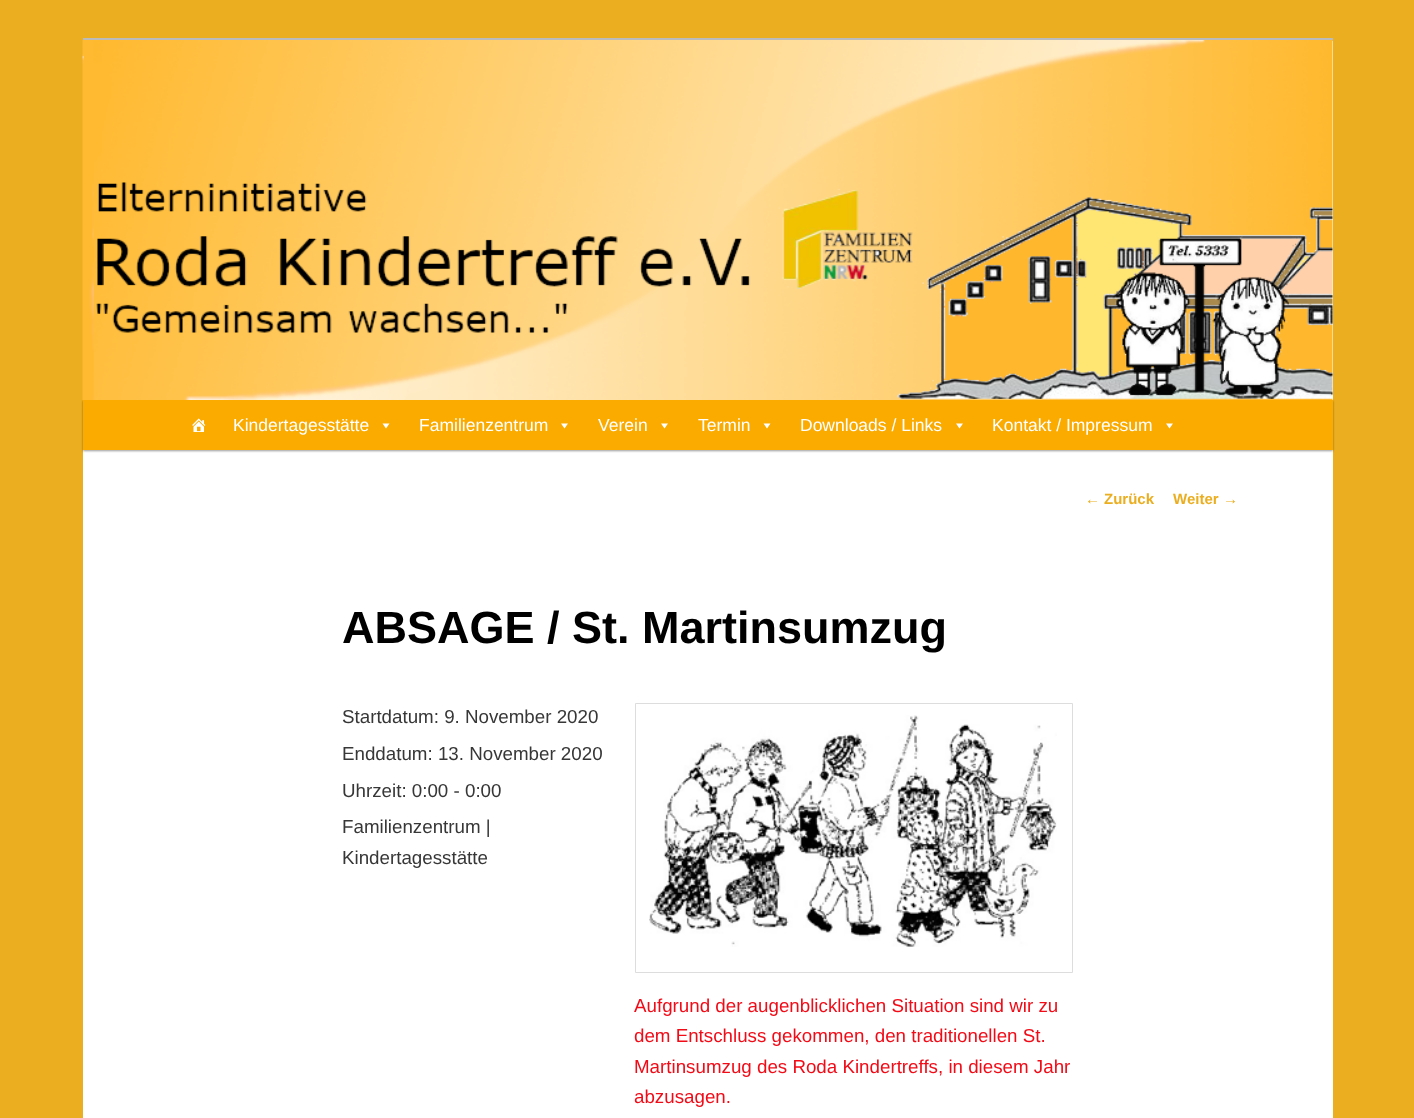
<svg xmlns="http://www.w3.org/2000/svg" width="1414" height="1118" viewBox="0 0 1414 1118">
  <rect width="100%" height="100%" fill="#eaae20"/>
  <path d="M83 41h1250v1077H83z" fill="#fff"/>
  <path d="M83 38h1250v3H83z" fill="#bbb"/>
  <path d="M83 401h1250v50H83z" fill="#00000066" filter="blur(1px)"/>
  <image x="82" y="40" width="1251" height="360" href="img/1.png"/>
  <path d="M83 400h1250v50H83z" fill="#fbaa00"/>
  <image x="192" y="418" width="14" height="14" href="img/2.png"/>
  <path d="M389.5 423.5L386 428.5L382.5 423.5Z" fill="#fff"/>
  <path d="M568 423.5L564.5 428.5L561 423.5Z" fill="#fff"/>
  <path d="M668 423.5L664.5 428.5L661 423.5Z" fill="#fff"/>
  <path d="M770.5 423.5L767 428.5L763.5 423.5Z" fill="#fff"/>
  <path d="M963 423.5L959.5 428.5L956 423.5Z" fill="#fff"/>
  <path d="M1173 423.5L1169.5 428.5L1166 423.5Z" fill="#fff"/>
  <path d="M635.5 703.5h437v269H635.5z" fill="none" stroke="#ddd"/>
  <image x="649" y="715" width="408" height="232" href="img/3.png"/>
  <g font-family="Liberation Sans" font-size="17.5" fill="#fff">
    <text x="233" y="431">Kindertagesstätte</text>
    <text x="419" y="431">Familienzentrum</text>
    <text x="598" y="431">Verein</text>
    <text x="698" y="431">Termin</text>
    <text x="800" y="431">Downloads / Links</text>
    <text x="992" y="431">Kontakt / Impressum</text>
  </g>
  <text x="1085" y="504" font-family="Liberation Sans" font-size="15" fill="#eaae20">←</text>
  <g font-family="Liberation Sans" font-size="15" font-weight="bold" fill="#eaae20">
    <text x="1104" y="504">Zurück</text>
    <text x="1173" y="504">Weiter</text>
  </g>
  <text x="1223" y="504" font-family="Liberation Sans" font-size="15" fill="#eaae20">→</text>
  <text x="342" y="643" font-family="Liberation Sans" font-size="45" font-weight="bold" fill="#000">ABSAGE / St. Martinsumzug</text>
  <g font-family="Liberation Sans" font-size="18.75" fill="#373737">
    <text x="342" y="723">Startdatum: 9. November 2020</text>
    <text x="342" y="760">Enddatum: 13. November 2020</text>
    <text x="342" y="797">Uhrzeit: 0:00 - 0:00</text>
    <text x="342" y="833">Familienzentrum |</text>
    <text x="342" y="864">Kindertagesstätte</text>
  </g>
  <g font-family="Liberation Sans" font-size="18.75" fill="#f10b17">
    <text x="634" y="1012">Aufgrund der augenblicklichen Situation sind wir zu</text>
    <text x="634" y="1042">dem Entschluss gekommen, den traditionellen St.</text>
    <text x="634" y="1073">Martinsumzug des Roda Kindertreffs, in diesem Jahr</text>
    <text x="634" y="1103">abzusagen.</text>
  </g>
</svg>
